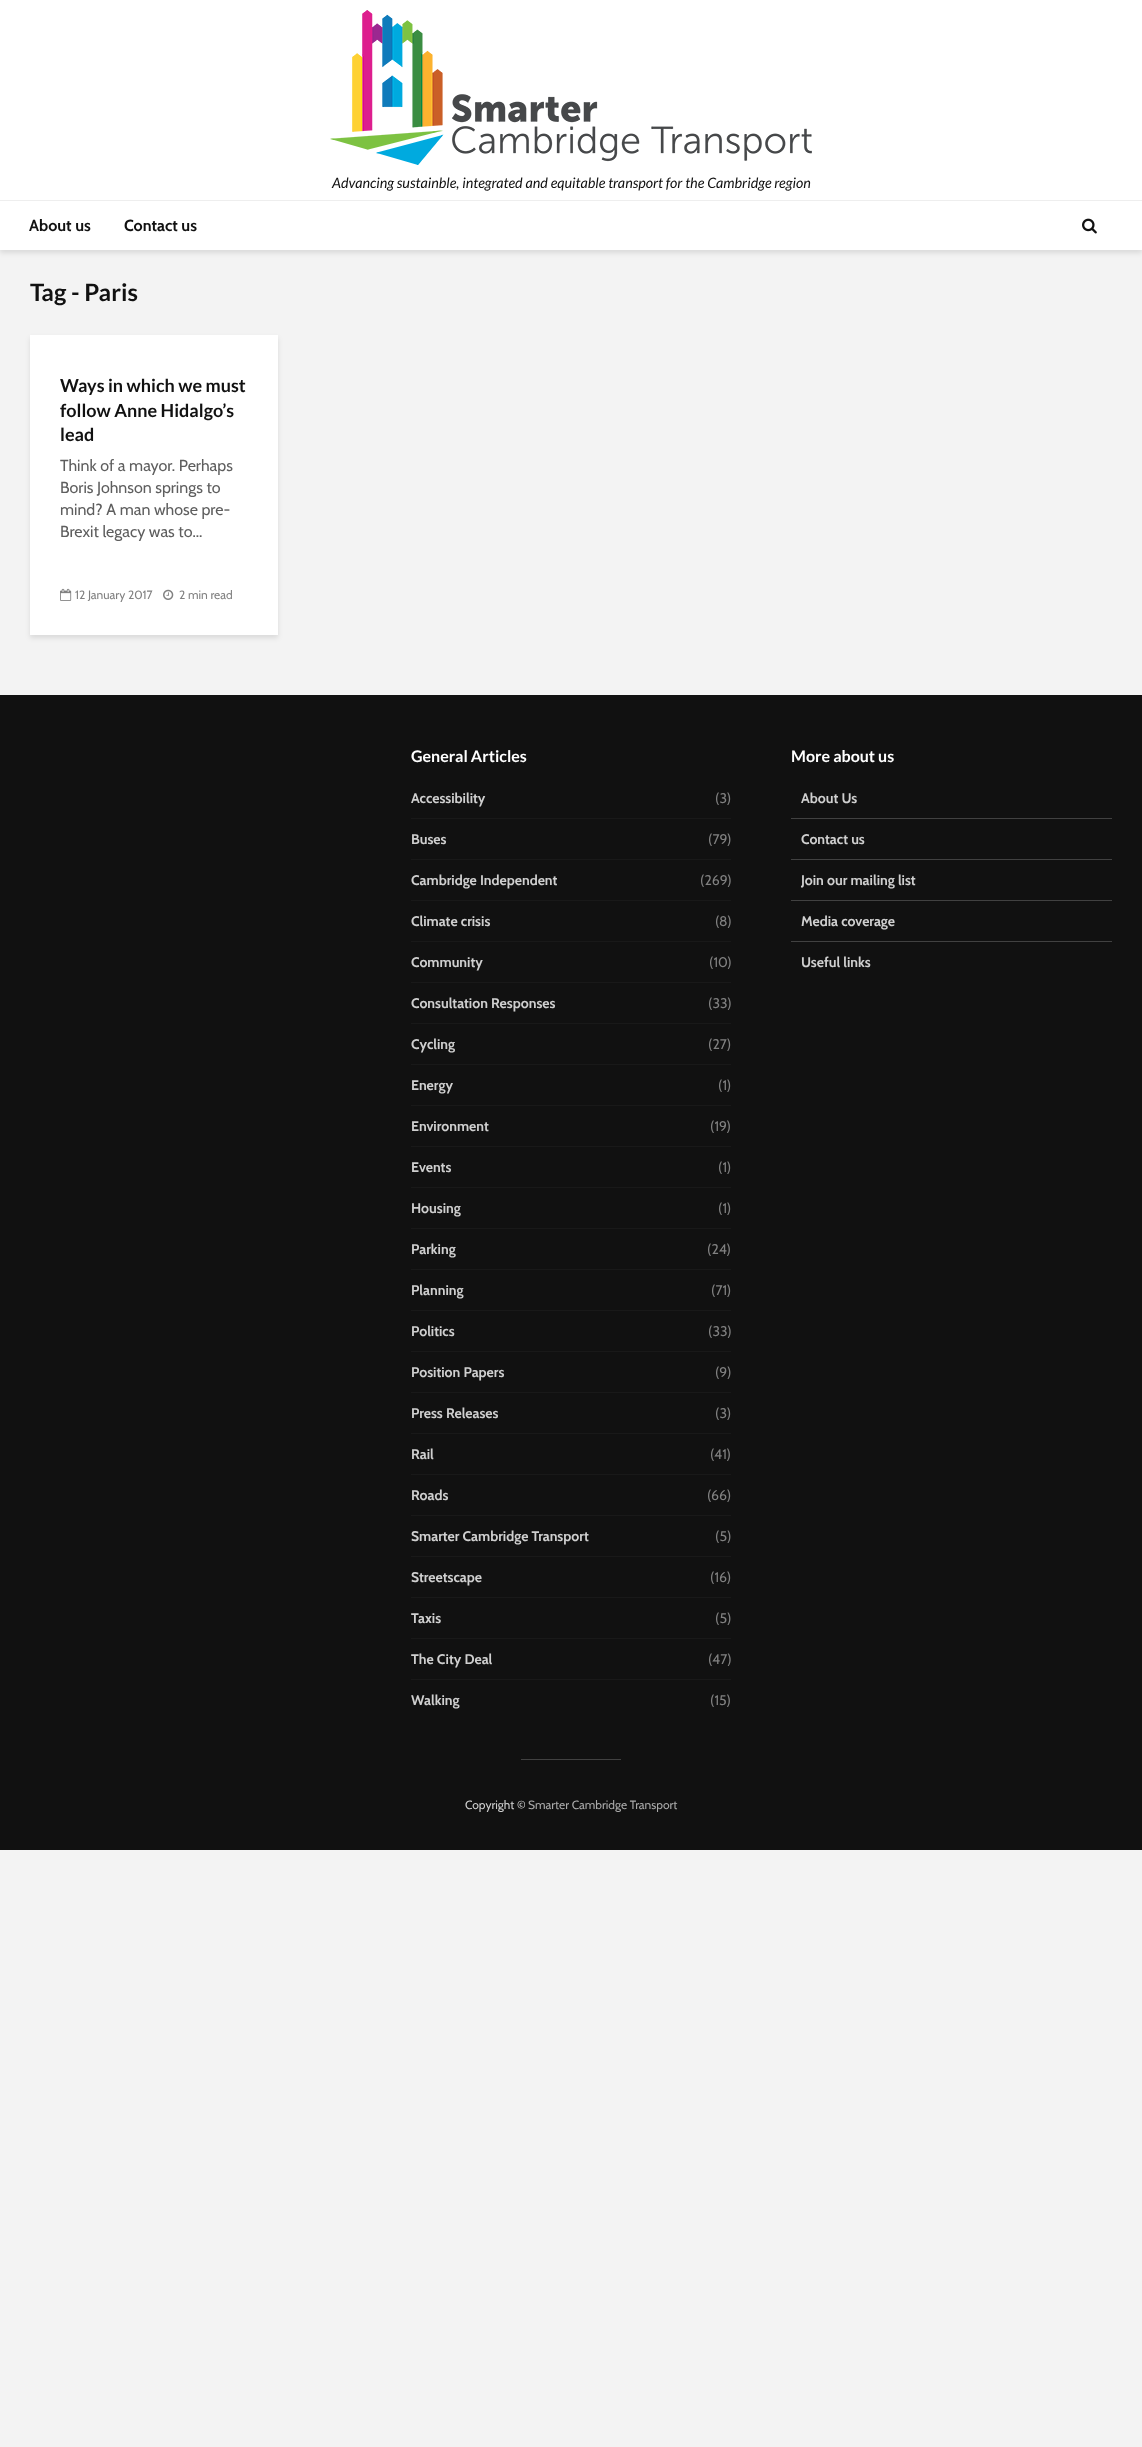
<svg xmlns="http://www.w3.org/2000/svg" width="1142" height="2447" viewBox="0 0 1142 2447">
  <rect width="100%" height="100%" fill="#f3f3f3"/>
  <path d="M0 3h1142v250H0z" fill="#0001011a" filter="blur(2.5px)"/>
  <path d="M0 0h1142v200H0z" fill="#fff"/>
  <image x="330" y="10" width="482" height="155" href="img/1.png"/>
  <path d="M0 201h1142v49H0z" fill="#fff"/>
  <path d="M0 200h1142v1H0z" fill="#eee"/>
  <image x="1082" y="218" width="15" height="16" href="img/2.png"/>
  <path d="M30 338h248v300H30z" fill="#0001011a" filter="blur(2.5px)"/>
  <path d="M30 335h248v300H30z" fill="#fff"/>
  <image x="60" y="588" width="12" height="13" href="img/3.png"/>
  <image x="163" y="589" width="11" height="11" href="img/4.png"/>
  <path d="M0 695h1142v1155H0z" fill="#111"/>
  <path d="M411 818h320v1H411z" fill="#191919"/>
  <path d="M411 859h320v1H411z" fill="#191919"/>
  <path d="M411 900h320v1H411z" fill="#191919"/>
  <path d="M411 941h320v1H411z" fill="#191919"/>
  <path d="M411 982h320v1H411z" fill="#191919"/>
  <path d="M411 1023h320v1H411z" fill="#191919"/>
  <path d="M411 1064h320v1H411z" fill="#191919"/>
  <path d="M411 1105h320v1H411z" fill="#191919"/>
  <path d="M411 1146h320v1H411z" fill="#191919"/>
  <path d="M411 1187h320v1H411z" fill="#191919"/>
  <path d="M411 1228h320v1H411z" fill="#191919"/>
  <path d="M411 1269h320v1H411z" fill="#191919"/>
  <path d="M411 1310h320v1H411z" fill="#191919"/>
  <path d="M411 1351h320v1H411z" fill="#191919"/>
  <path d="M411 1392h320v1H411z" fill="#191919"/>
  <path d="M411 1433h320v1H411z" fill="#191919"/>
  <path d="M411 1474h320v1H411z" fill="#191919"/>
  <path d="M411 1515h320v1H411z" fill="#191919"/>
  <path d="M411 1556h320v1H411z" fill="#191919"/>
  <path d="M411 1597h320v1H411z" fill="#191919"/>
  <path d="M411 1638h320v1H411z" fill="#191919"/>
  <path d="M411 1679h320v1H411z" fill="#191919"/>
  <path d="M791 818h321v1H791z" fill="#414141"/>
  <path d="M791 859h321v1H791z" fill="#414141"/>
  <path d="M791 900h321v1H791z" fill="#414141"/>
  <path d="M791 941h321v1H791z" fill="#414141"/>
  <path d="M521 1759h100v1H521z" fill="#414141"/>
  <text x="332" y="188" font-family="Lato" font-size="14.4" font-style="italic" fill="#111">Advancing sustainble, integrated and equitable transport for the Cambridge region</text>
  <g font-family="Cabin" font-size="16" font-weight="bold" fill="#111">
    <text x="29" y="231">About us</text>
    <text x="124" y="231">Contact us</text>
  </g>
  <text x="30" y="301" font-family="Lato" font-size="24" font-weight="bold" fill="#111">Tag - Paris</text>
  <g font-family="Lato" font-size="18" font-weight="bold" fill="#111">
    <text x="60" y="392">Ways in which we must</text>
    <text x="60" y="417">follow Anne Hidalgo’s</text>
    <text x="60" y="441">lead</text>
  </g>
  <g font-family="Cabin" font-size="16" fill="#5e5e5e">
    <text x="60" y="471">Think of a mayor. Perhaps</text>
    <text x="60" y="493">Boris Johnson springs to</text>
    <text x="60" y="515">mind? A man whose pre-</text>
    <text x="60" y="537">Brexit legacy was to...</text>
  </g>
  <g font-family="Cabin" font-size="12" fill="#818181">
    <text x="75" y="599">12 January 2017</text>
    <text x="179" y="599">2 min read</text>
  </g>
  <text x="411" y="762" font-family="Lato" font-size="16" font-weight="bold" fill="#fff">General Articles</text>
  <text x="411" y="803" font-family="Cabin" font-size="14" font-weight="bold" fill="#cfcfcf">Accessibility</text>
  <text x="715" y="803" font-family="Cabin" font-size="14" fill="#818181">(3)</text>
  <text x="411" y="844" font-family="Cabin" font-size="14" font-weight="bold" fill="#cfcfcf">Buses</text>
  <text x="708" y="844" font-family="Cabin" font-size="14" fill="#818181">(79)</text>
  <text x="411" y="885" font-family="Cabin" font-size="14" font-weight="bold" fill="#cfcfcf">Cambridge Independent</text>
  <text x="700" y="885" font-family="Cabin" font-size="14" fill="#818181">(269)</text>
  <text x="411" y="926" font-family="Cabin" font-size="14" font-weight="bold" fill="#cfcfcf">Climate crisis</text>
  <text x="715" y="926" font-family="Cabin" font-size="14" fill="#818181">(8)</text>
  <text x="411" y="967" font-family="Cabin" font-size="14" font-weight="bold" fill="#cfcfcf">Community</text>
  <text x="709" y="967" font-family="Cabin" font-size="14" fill="#818181">(10)</text>
  <text x="411" y="1008" font-family="Cabin" font-size="14" font-weight="bold" fill="#cfcfcf">Consultation Responses</text>
  <text x="708" y="1008" font-family="Cabin" font-size="14" fill="#818181">(33)</text>
  <text x="411" y="1049" font-family="Cabin" font-size="14" font-weight="bold" fill="#cfcfcf">Cycling</text>
  <text x="708" y="1049" font-family="Cabin" font-size="14" fill="#818181">(27)</text>
  <text x="411" y="1090" font-family="Cabin" font-size="14" font-weight="bold" fill="#cfcfcf">Energy</text>
  <text x="718" y="1090" font-family="Cabin" font-size="14" fill="#818181">(1)</text>
  <text x="411" y="1131" font-family="Cabin" font-size="14" font-weight="bold" fill="#cfcfcf">Environment</text>
  <text x="710" y="1131" font-family="Cabin" font-size="14" fill="#818181">(19)</text>
  <text x="411" y="1172" font-family="Cabin" font-size="14" font-weight="bold" fill="#cfcfcf">Events</text>
  <text x="718" y="1172" font-family="Cabin" font-size="14" fill="#818181">(1)</text>
  <text x="411" y="1213" font-family="Cabin" font-size="14" font-weight="bold" fill="#cfcfcf">Housing</text>
  <text x="718" y="1213" font-family="Cabin" font-size="14" fill="#818181">(1)</text>
  <text x="411" y="1254" font-family="Cabin" font-size="14" font-weight="bold" fill="#cfcfcf">Parking</text>
  <text x="707" y="1254" font-family="Cabin" font-size="14" fill="#818181">(24)</text>
  <text x="411" y="1295" font-family="Cabin" font-size="14" font-weight="bold" fill="#cfcfcf">Planning</text>
  <text x="711" y="1295" font-family="Cabin" font-size="14" fill="#818181">(71)</text>
  <text x="411" y="1336" font-family="Cabin" font-size="14" font-weight="bold" fill="#cfcfcf">Politics</text>
  <text x="708" y="1336" font-family="Cabin" font-size="14" fill="#818181">(33)</text>
  <text x="411" y="1377" font-family="Cabin" font-size="14" font-weight="bold" fill="#cfcfcf">Position Papers</text>
  <text x="715" y="1377" font-family="Cabin" font-size="14" fill="#818181">(9)</text>
  <text x="411" y="1418" font-family="Cabin" font-size="14" font-weight="bold" fill="#cfcfcf">Press Releases</text>
  <text x="715" y="1418" font-family="Cabin" font-size="14" fill="#818181">(3)</text>
  <text x="411" y="1459" font-family="Cabin" font-size="14" font-weight="bold" fill="#cfcfcf">Rail</text>
  <text x="710" y="1459" font-family="Cabin" font-size="14" fill="#818181">(41)</text>
  <text x="411" y="1500" font-family="Cabin" font-size="14" font-weight="bold" fill="#cfcfcf">Roads</text>
  <text x="707" y="1500" font-family="Cabin" font-size="14" fill="#818181">(66)</text>
  <text x="411" y="1541" font-family="Cabin" font-size="14" font-weight="bold" fill="#cfcfcf">Smarter Cambridge Transport</text>
  <text x="715" y="1541" font-family="Cabin" font-size="14" fill="#818181">(5)</text>
  <text x="411" y="1582" font-family="Cabin" font-size="14" font-weight="bold" fill="#cfcfcf">Streetscape</text>
  <text x="710" y="1582" font-family="Cabin" font-size="14" fill="#818181">(16)</text>
  <text x="411" y="1623" font-family="Cabin" font-size="14" font-weight="bold" fill="#cfcfcf">Taxis</text>
  <text x="715" y="1623" font-family="Cabin" font-size="14" fill="#818181">(5)</text>
  <text x="411" y="1664" font-family="Cabin" font-size="14" font-weight="bold" fill="#cfcfcf">The City Deal</text>
  <text x="708" y="1664" font-family="Cabin" font-size="14" fill="#818181">(47)</text>
  <text x="411" y="1705" font-family="Cabin" font-size="14" font-weight="bold" fill="#cfcfcf">Walking</text>
  <text x="710" y="1705" font-family="Cabin" font-size="14" fill="#818181">(15)</text>
  <text x="791" y="762" font-family="Lato" font-size="16" font-weight="bold" fill="#fff">More about us</text>
  <g font-family="Cabin" font-size="14" font-weight="bold" fill="#cfcfcf">
    <text x="801" y="803">About Us</text>
    <text x="801" y="844">Contact us</text>
    <text x="801" y="885">Join our mailing list</text>
    <text x="801" y="926">Media coverage</text>
    <text x="801" y="967">Useful links</text>
  </g>
  <text x="465" y="1809" font-family="Cabin" font-size="12" fill="#cfcfcf">Copyright ©</text>
  <text x="528" y="1809" font-family="Cabin" font-size="12" fill="#a9a9a9">Smarter Cambridge Transport</text>
</svg>
